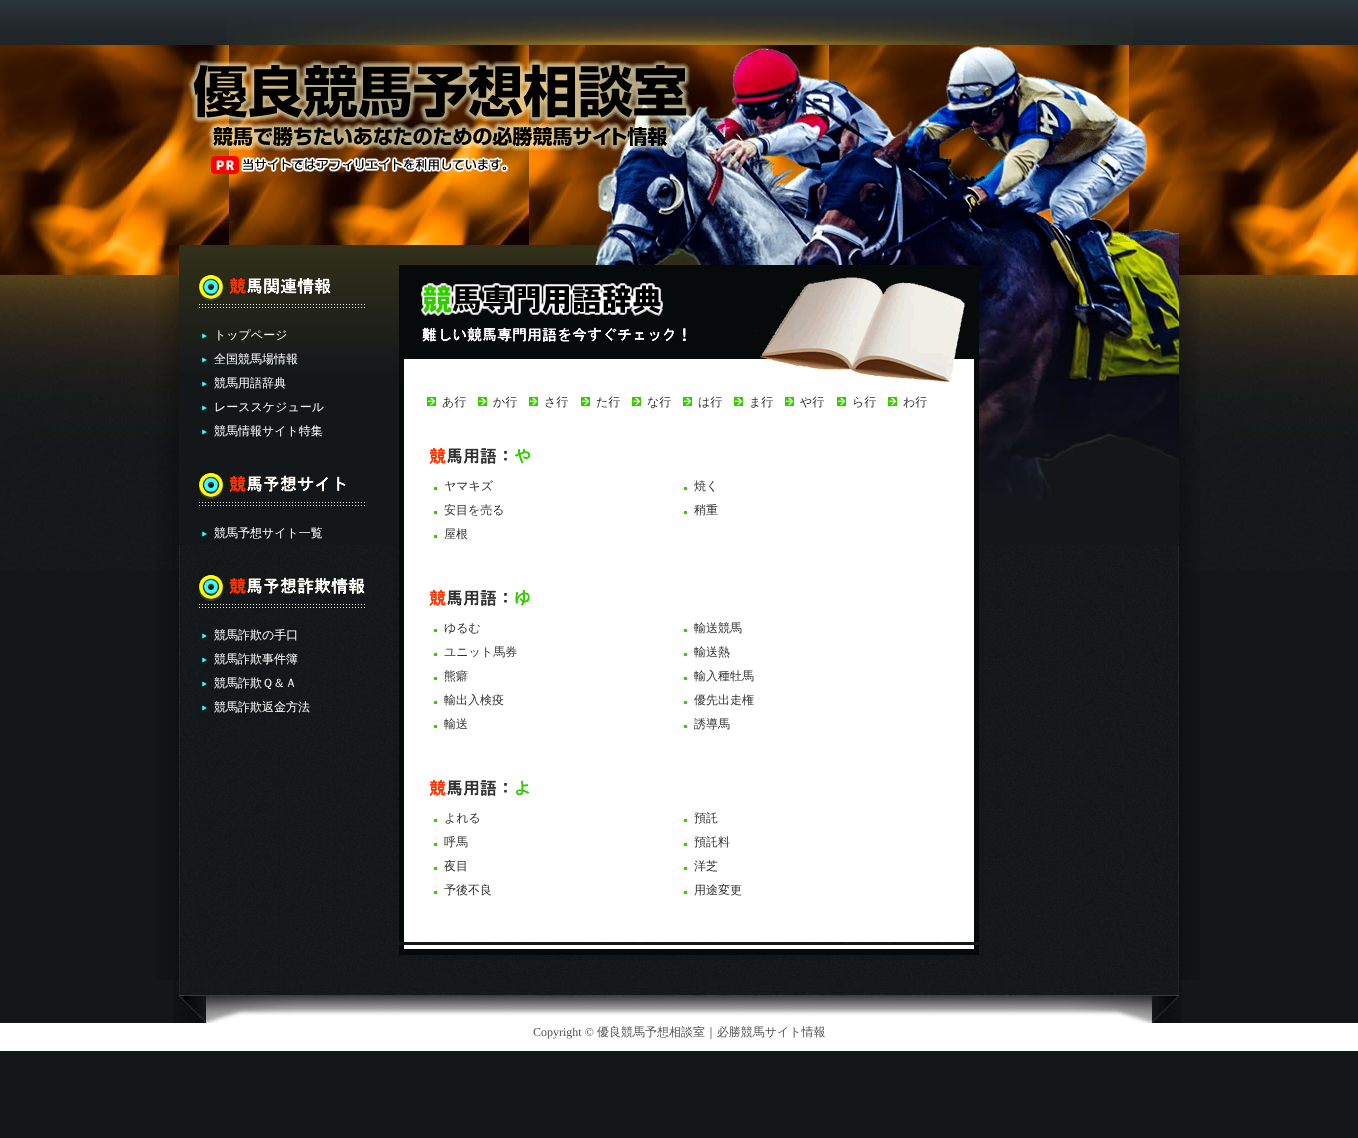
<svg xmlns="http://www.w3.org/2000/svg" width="1358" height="1138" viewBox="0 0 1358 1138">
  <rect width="100%" height="100%" fill="#131719"/>
  <image x="0" y="0" width="1358" height="570" href="img/1.png"/>
  <path d="M179 40h1000v5H179z" fill="#1f2428"/>
  <image x="227" y="16" width="906" height="29" href="img/2.png"/>
  <image x="188" y="46" width="991" height="199" href="img/4.png"/>
  <image x="211" y="156" width="298" height="18" href="img/3.png"/>
  <image x="155" y="245" width="1045" height="735" href="img/5.png"/>
  <image x="179" y="245" width="1000" height="300" href="img/6.png"/>
  <image x="199" y="275" width="166" height="33" href="img/7.png"/>
  <image x="202" y="333" width="5" height="6" href="img/8.png"/>
  <image x="202" y="357" width="5" height="6" href="img/9.png"/>
  <image x="202" y="381" width="5" height="6" href="img/10.png"/>
  <image x="202" y="405" width="5" height="6" href="img/10.png"/>
  <image x="202" y="429" width="5" height="6" href="img/10.png"/>
  <image x="199" y="473" width="166" height="33" href="img/11.png"/>
  <image x="202" y="531" width="5" height="6" href="img/10.png"/>
  <image x="199" y="575" width="166" height="33" href="img/12.png"/>
  <image x="202" y="633" width="5" height="6" href="img/13.png"/>
  <image x="202" y="657" width="5" height="6" href="img/14.png"/>
  <image x="202" y="681" width="5" height="6" href="img/15.png"/>
  <image x="202" y="705" width="5" height="6" href="img/16.png"/>
  <image x="399" y="265" width="580" height="120" href="img/17.png"/>
  <image x="399" y="385" width="580" height="557" href="img/18.png"/>
  <image x="427" y="397" width="9" height="9" href="img/19.png"/>
  <image x="478" y="397" width="9" height="9" href="img/19.png"/>
  <image x="529" y="397" width="9" height="9" href="img/19.png"/>
  <image x="581" y="397" width="9" height="9" href="img/19.png"/>
  <image x="632" y="397" width="9" height="9" href="img/19.png"/>
  <image x="683" y="397" width="9" height="9" href="img/19.png"/>
  <image x="734" y="397" width="9" height="9" href="img/19.png"/>
  <image x="785" y="397" width="9" height="9" href="img/19.png"/>
  <image x="837" y="397" width="9" height="9" href="img/19.png"/>
  <image x="888" y="397" width="9" height="9" href="img/19.png"/>
  <image x="429" y="448" width="101" height="16" href="img/20.png"/>
  <path d="M434 487h3v3H434z" fill="#3c0"/>
  <path d="M434 511h3v3H434z" fill="#3c0"/>
  <path d="M434 535h3v3H434z" fill="#3c0"/>
  <path d="M684 487h3v3H684z" fill="#3c0"/>
  <path d="M684 511h3v3H684z" fill="#3c0"/>
  <image x="429" y="590" width="101" height="16" href="img/21.png"/>
  <path d="M434 629h3v3H434z" fill="#3c0"/>
  <path d="M434 653h3v3H434z" fill="#3c0"/>
  <path d="M434 677h3v3H434z" fill="#3c0"/>
  <path d="M434 701h3v3H434z" fill="#3c0"/>
  <path d="M434 725h3v3H434z" fill="#3c0"/>
  <path d="M684 629h3v3H684z" fill="#3c0"/>
  <path d="M684 653h3v3H684z" fill="#3c0"/>
  <path d="M684 677h3v3H684z" fill="#3c0"/>
  <path d="M684 701h3v3H684z" fill="#3c0"/>
  <path d="M684 725h3v3H684z" fill="#3c0"/>
  <image x="429" y="780" width="100" height="16" href="img/22.png"/>
  <path d="M434 819h3v3H434z" fill="#3c0"/>
  <path d="M434 843h3v3H434z" fill="#3c0"/>
  <path d="M434 867h3v3H434z" fill="#3c0"/>
  <path d="M434 891h3v3H434z" fill="#3c0"/>
  <path d="M684 819h3v3H684z" fill="#3c0"/>
  <path d="M684 843h3v3H684z" fill="#3c0"/>
  <path d="M684 867h3v3H684z" fill="#3c0"/>
  <path d="M684 891h3v3H684z" fill="#3c0"/>
  <image x="399" y="945" width="580" height="10" href="img/23.png"/>
  <image x="173" y="980" width="1009" height="43" href="img/24.png"/>
  <path d="M0 1023h1358v28H0z" fill="#fff"/>
  <g font-family="WenQuanYi Zen Hei" font-size="12" font-weight="500" fill="#fff">
    <text x="214" y="339">トップページ</text>
    <text x="214" y="363">全国競馬場情報</text>
    <text x="214" y="387">競馬用語辞典</text>
    <text x="214" y="411">レーススケジュール</text>
    <text x="214" y="435">競馬情報サイト特集</text>
    <text x="214" y="537">競馬予想サイト一覧</text>
    <text x="214" y="639">競馬詐欺の手口</text>
    <text x="214" y="663">競馬詐欺事件簿</text>
    <text x="214" y="687">競馬詐欺Ｑ＆Ａ</text>
    <text x="214" y="711">競馬詐欺返金方法</text>
  </g>
  <g font-family="WenQuanYi Zen Hei" font-size="12" font-weight="500" fill="#333">
    <text x="442" y="406">あ行</text>
    <text x="493" y="406">か行</text>
    <text x="544" y="406">さ行</text>
    <text x="596" y="406">た行</text>
    <text x="647" y="406">な行</text>
    <text x="698" y="406">は行</text>
    <text x="749" y="406">ま行</text>
    <text x="800" y="406">や行</text>
    <text x="852" y="406">ら行</text>
    <text x="903" y="406">わ行</text>
    <text x="444" y="490">ヤマキズ</text>
    <text x="444" y="514">安目を売る</text>
    <text x="444" y="538">屋根</text>
    <text x="694" y="490">焼く</text>
    <text x="694" y="514">稍重</text>
    <text x="444" y="632">ゆるむ</text>
    <text x="444" y="656">ユニット馬券</text>
    <text x="444" y="680">熊癖</text>
    <text x="444" y="704">輸出入検疫</text>
    <text x="444" y="728">輸送</text>
    <text x="694" y="632">輸送競馬</text>
    <text x="694" y="656">輸送熱</text>
    <text x="694" y="680">輸入種牡馬</text>
    <text x="694" y="704">優先出走権</text>
    <text x="694" y="728">誘導馬</text>
    <text x="444" y="822">よれる</text>
    <text x="444" y="846">呼馬</text>
    <text x="444" y="870">夜目</text>
    <text x="444" y="894">予後不良</text>
    <text x="694" y="822">預託</text>
    <text x="694" y="846">預託料</text>
    <text x="694" y="870">洋芝</text>
    <text x="694" y="894">用途変更</text>
  </g>
  <text x="533" y="1036" font-family="Liberation Serif" font-size="12" fill="#555">Copyright ©</text>
  <text x="597" y="1036" font-family="WenQuanYi Zen Hei" font-size="12" font-weight="500" fill="#555">優良競馬予想相談室｜必勝競馬サイト情報</text>
</svg>
